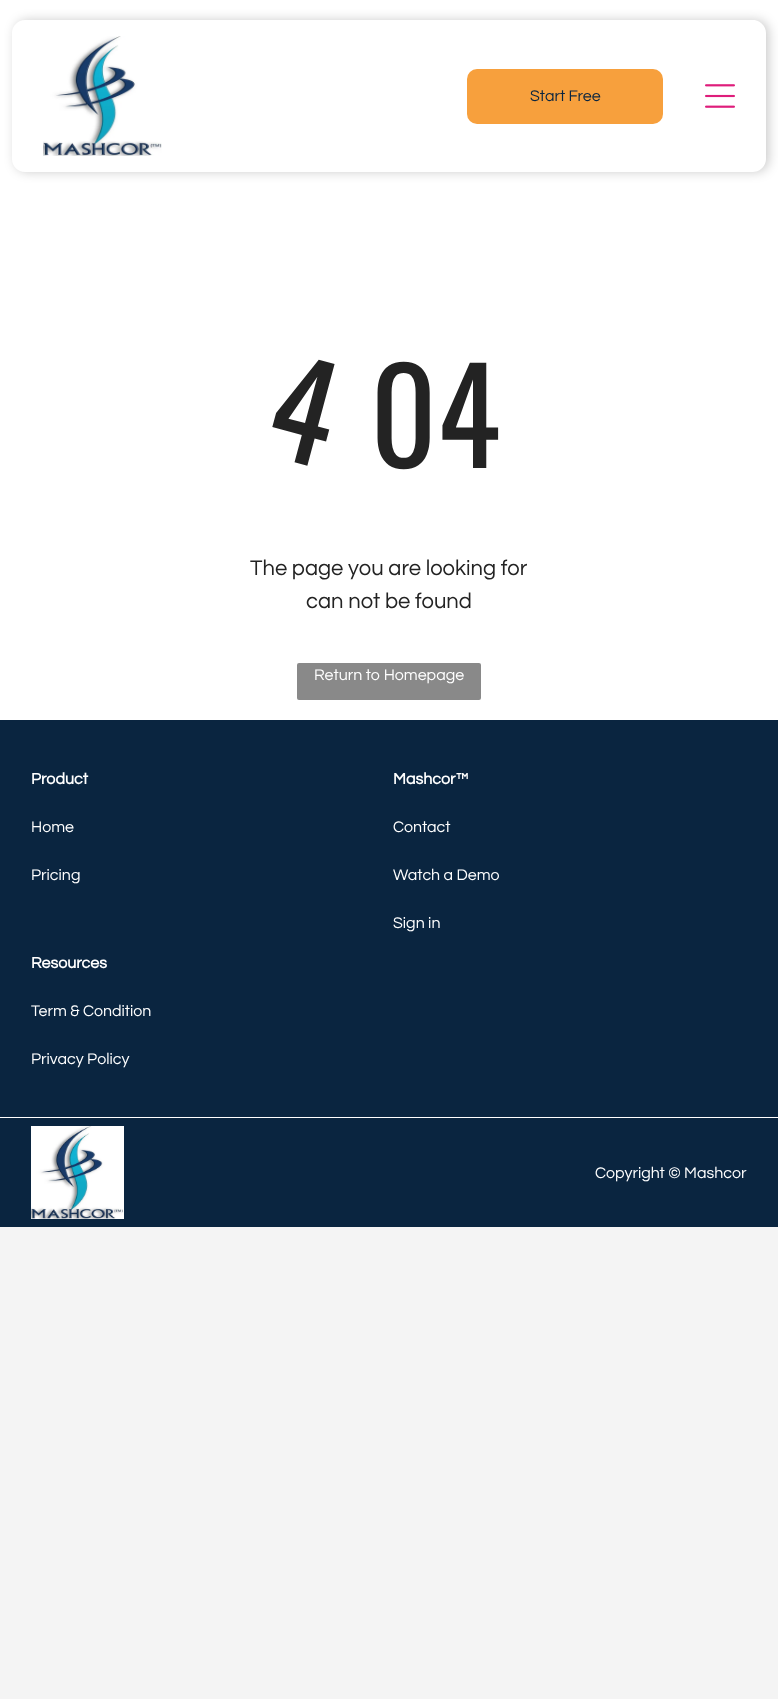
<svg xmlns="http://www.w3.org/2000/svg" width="778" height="1699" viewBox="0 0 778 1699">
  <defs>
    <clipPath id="clip1"><path d="M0 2H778V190H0ZM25 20H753C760 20 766 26 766 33V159C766 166 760 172 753 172H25C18 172 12 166 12 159V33C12 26 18 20 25 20Z" clip-rule="evenodd"/></clipPath>
  </defs>
  <rect width="100%" height="100%" fill="#f4f4f4"/>
  <path d="M0 0h778v720H0z" fill="#fff"/>
  <g clip-path="url(#clip1)">
    <rect x="15" y="20" width="754" height="152" rx="13" fill="#00000033" filter="blur(5.5px)"/>
  </g>
  <image x="43" y="36" width="119" height="120" href="img/1.png"/>
  <rect x="467" y="69" width="196" height="55" rx="10" fill="#f7a03d"/>
  <image x="705" y="84" width="30" height="24" href="img/2.png"/>
  <rect x="297" y="663" width="184" height="37" rx="2" fill="#898989"/>
  <path d="M0 720h778v507H0z" fill="#0a2540"/>
  <path d="M0 1117h778v1H0z" fill="#fff"/>
  <image x="31" y="1126" width="93" height="93" href="img/3.png"/>
  <text x="530" y="101" font-family="Questrial" font-size="16" fill="#0a2540">Start Free</text>
  <g font-family="Oswald" font-size="130" fill="#232323">
    <text x="260" y="453" transform="rotate(15 260 453)">4</text>
    <text x="370" y="468">04</text>
  </g>
  <g font-family="Questrial" font-size="22" fill="#232323">
    <text x="250" y="575">The page you are looking for</text>
    <text x="306" y="608">can not be found</text>
  </g>
  <text x="314" y="680" font-family="Questrial" font-size="16" fill="#fff">Return to Homepage</text>
  <text x="31" y="784" font-family="Questrial" font-size="16" font-weight="bold" fill="#fff">Product</text>
  <g font-family="Questrial" font-size="16" fill="#fff">
    <text x="31" y="832">Home</text>
    <text x="31" y="880">Pricing</text>
  </g>
  <text x="393" y="784" font-family="Questrial" font-size="16" font-weight="bold" fill="#fff">Mashcor™</text>
  <g font-family="Questrial" font-size="16" fill="#fff">
    <text x="393" y="832">Contact</text>
    <text x="393" y="880">Watch a Demo</text>
    <text x="393" y="928">Sign in</text>
  </g>
  <text x="31" y="968" font-family="Questrial" font-size="16" font-weight="bold" fill="#fff">Resources</text>
  <g font-family="Questrial" font-size="16" fill="#fff">
    <text x="31" y="1016">Term &amp; Condition</text>
    <text x="31" y="1064">Privacy Policy</text>
    <text x="595" y="1178">Copyright © Mashcor</text>
  </g>
</svg>
